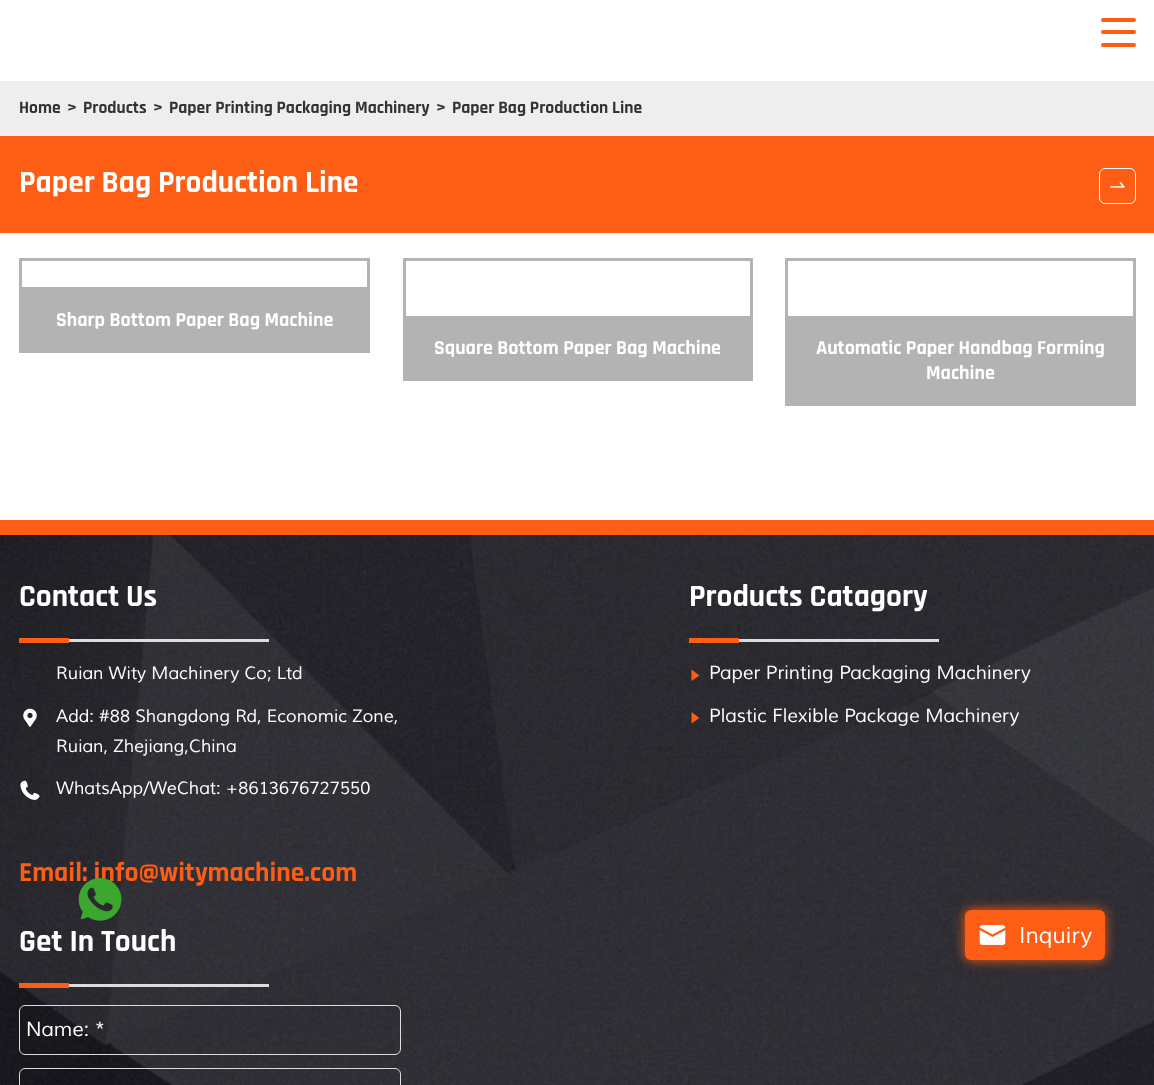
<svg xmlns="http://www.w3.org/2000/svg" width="1154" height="1085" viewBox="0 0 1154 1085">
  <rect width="100%" height="100%" fill="#fff"/>
  <rect x="1101" y="18" width="35" height="4" rx="2" fill="#fd5d14"/>
  <rect x="1101" y="30" width="35" height="4" rx="2" fill="#fd5d14"/>
  <rect x="1101" y="43" width="35" height="4" rx="2" fill="#fd5d14"/>
  <path d="M0 81h1154v55H0z" fill="#eee"/>
  <path d="M0 136h1154v97H0z" fill="#fd5d14"/>
  <rect x="1099.5" y="168.5" width="36" height="35" rx="5.5" fill="none" stroke="#fff"/>
  <image x="1110" y="182" width="15" height="6" href="img/1.png"/>
  <path d="M20.5 259.5h348v29H20.5z" fill="none" stroke="#b3b3b3" stroke-width="3"/>
  <path d="M19 290h351v63H19z" fill="#b3b3b3"/>
  <path d="M404.5 259.5h347v58H404.5z" fill="none" stroke="#b3b3b3" stroke-width="3"/>
  <path d="M403 319h350v62H403z" fill="#b3b3b3"/>
  <path d="M786.5 259.5h348v58H786.5z" fill="none" stroke="#b3b3b3" stroke-width="3"/>
  <path d="M785 319h351v87H785z" fill="#b3b3b3"/>
  <image x="0" y="535" width="1154" height="550" href="img/2.png"/>
  <path d="M0 520h1154v15H0z" fill="#fd5d14"/>
  <path d="M19 638h50v5H19z" fill="#fd5d14"/>
  <path d="M69 639h200v3H69z" fill="#ddd"/>
  <image x="23" y="708" width="14" height="19" href="img/3.png"/>
  <image x="20" y="780" width="20" height="20" href="img/4.png"/>
  <path d="M689 638h50v5H689z" fill="#fd5d14"/>
  <path d="M739 639h200v3H739z" fill="#ddd"/>
  <path d="M699.5 675.5L691.5 681V669.5Z" fill="#fd5d14"/>
  <path d="M699.5 718L691.5 723.5V712Z" fill="#fd5d14"/>
  <path d="M19 983h50v5H19z" fill="#fd5d14"/>
  <path d="M69 984h200v3H69z" fill="#ddd"/>
  <rect x="19.5" y="1005.5" width="381" height="49" rx="5.5" fill="none" stroke="#ddd"/>
  <rect x="19.5" y="1068.5" width="381" height="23" rx="5.5" fill="none" stroke="#ddd"/>
  <rect x="965" y="910" width="140" height="50" rx="6" fill="#fd5d14" filter="blur(6px)"/>
  <rect x="965" y="910" width="140" height="50" rx="6" fill="#fd5d14"/>
  <image x="979" y="925" width="27" height="20" href="img/6.png"/>
  <g font-family="Rajdhani" font-size="17.5" font-weight="bold" fill="#333">
    <text x="19" y="113">Home</text>
    <text x="67" y="113">&gt;</text>
    <text x="83" y="113">Products</text>
    <text x="153" y="113">&gt;</text>
    <text x="169" y="113">Paper Printing Packaging Machinery</text>
    <text x="436" y="113">&gt;</text>
    <text x="452" y="113">Paper Bag Production Line</text>
  </g>
  <text x="19" y="192" font-family="Rajdhani" font-size="31.25" font-weight="bold" fill="#fff">Paper Bag Production Line</text>
  <g font-family="Rajdhani" font-size="20" font-weight="bold" fill="#fff">
    <text x="56" y="326">Sharp Bottom Paper Bag Machine</text>
    <text x="434" y="354">Square Bottom Paper Bag Machine</text>
    <text x="816" y="354">Automatic Paper Handbag Forming</text>
    <text x="926" y="379">Machine</text>
  </g>
  <text x="19" y="606" font-family="Rajdhani" font-size="31.25" font-weight="bold" fill="#fff">Contact Us</text>
  <g font-family="Muli" font-size="17.5" font-style="italic" fill="#fff">
    <text x="56" y="679">Ruian Wity Machinery Co; Ltd</text>
    <text x="56" y="722">Add: #88 Shangdong Rd, Economic Zone,</text>
    <text x="56" y="752">Ruian, Zhejiang,China</text>
    <text x="56" y="794">WhatsApp/WeChat: +8613676727550</text>
  </g>
  <text x="19" y="881" font-family="Rajdhani" font-size="27.5" font-weight="bold" fill="#fd5d14">Email: info@witymachine.com</text>
  <text x="689" y="606" font-family="Rajdhani" font-size="31.25" font-weight="bold" fill="#fff">Products Catagory</text>
  <g font-family="Muli" font-size="18.75" font-style="italic" fill="#fff">
    <text x="709" y="679">Paper Printing Packaging Machinery</text>
    <text x="709" y="722">Plastic Flexible Package Machinery</text>
  </g>
  <text x="19" y="951" font-family="Rajdhani" font-size="31.25" font-weight="bold" fill="#fff">Get In Touch</text>
  <text x="26" y="1036" font-family="Muli" font-size="20" font-style="italic" fill="#fff">Name: *</text>
  <image x="78" y="878" width="44" height="43" href="img/5.png"/>
  <text x="1019" y="943" font-family="Muli" font-size="22.5" font-style="italic" fill="#fff">Inquiry</text>
</svg>
